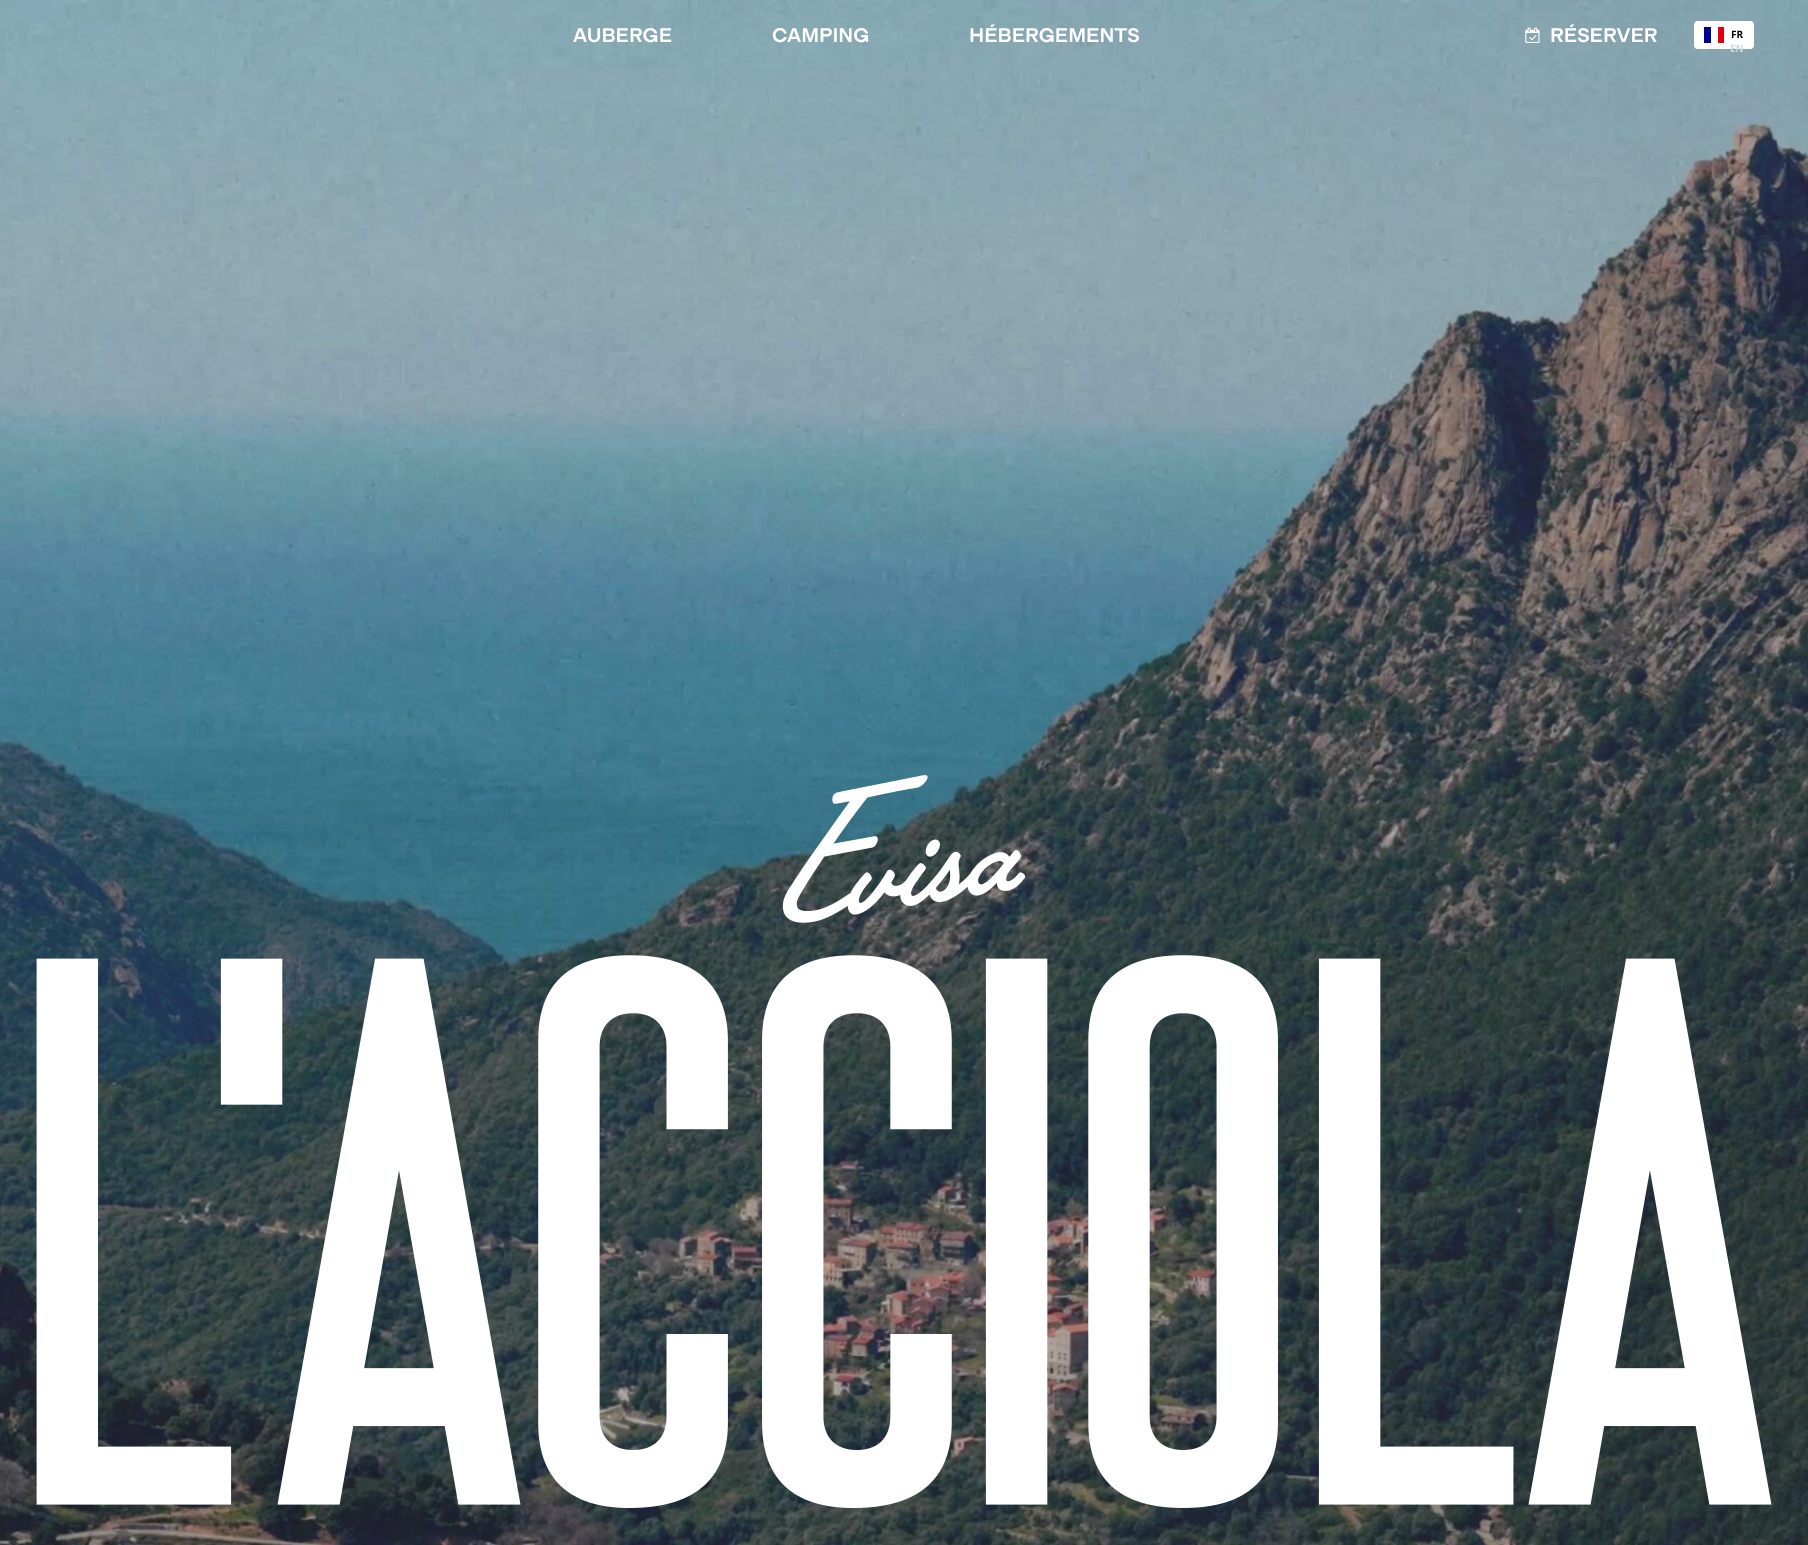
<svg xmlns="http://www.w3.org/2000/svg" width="1808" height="1545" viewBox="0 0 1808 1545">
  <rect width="100%" height="100%" fill="#fff"/>
  <image x="0" y="0" width="1808" height="1545" href="img/1.png"/>
  <image x="36" y="775" width="1736" height="733" href="img/2.png"/>
  <image x="1525" y="27" width="15" height="16" href="img/3.png"/>
  <rect x="1694" y="21" width="60" height="28" rx="4" fill="#fff"/>
  <path d="M1704 27h7v16H1704z" fill="#000091"/>
  <path d="M1718 27h6v16H1718z" fill="#e1000f"/>
  <g font-family="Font" font-size="20" font-weight="500" fill="#fff">
    <text x="573" y="42">AUBERGE</text>
    <text x="772" y="42">CAMPING</text>
    <text x="969" y="42">HÉBERGEMENTS</text>
    <text x="1550" y="42">RÉSERVER</text>
  </g>
  <text x="1731" y="38" font-family="Noto Sans" font-size="10" font-weight="bold" fill="#000">FR</text>
  <text x="1730" y="52" font-family="Noto Sans" font-size="10" font-weight="bold" fill="#cdd9de">EN</text>
</svg>
